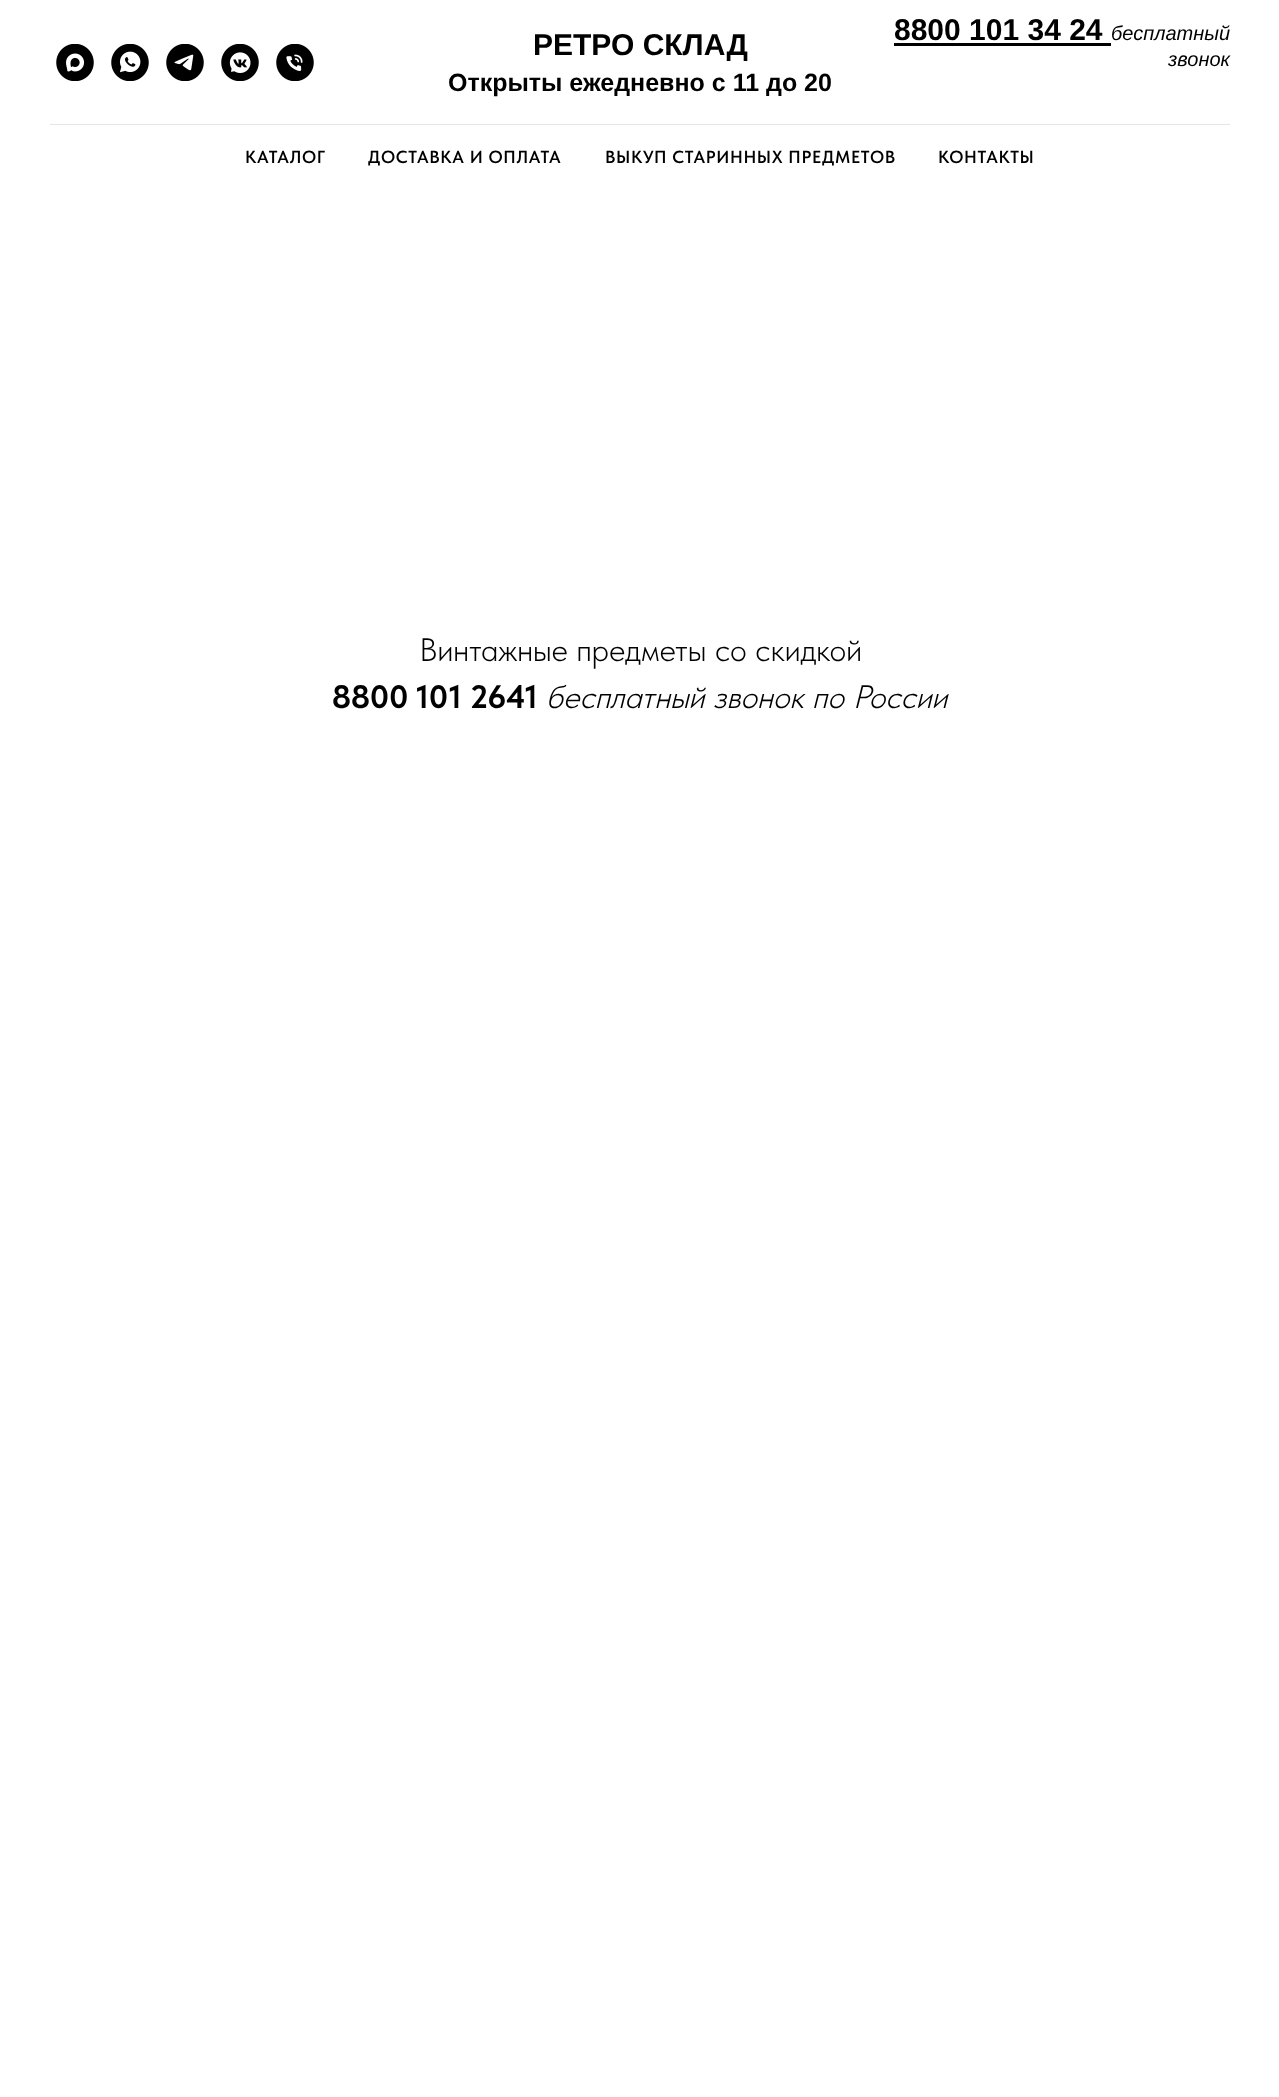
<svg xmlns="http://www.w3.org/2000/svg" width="1279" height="2097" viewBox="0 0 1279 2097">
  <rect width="100%" height="100%" fill="#fff"/>
  <image x="56" y="44" width="38" height="37" href="img/1.png"/>
  <image x="111" y="44" width="38" height="37" href="img/2.png"/>
  <image x="166" y="44" width="38" height="37" href="img/3.png"/>
  <image x="221" y="44" width="38" height="37" href="img/4.png"/>
  <image x="276" y="44" width="38" height="37" href="img/5.png"/>
  <path d="M894 43h217v3H894z" fill="#000"/>
  <path d="M50 124h1180v1H50z" fill="#e6e6e6"/>
  <text x="533" y="55" font-family="Liberation Sans" font-size="30" font-weight="bold" fill="#000">РЕТРО СКЛАД</text>
  <text x="448" y="91" font-family="Liberation Sans" font-size="25" font-weight="bold" fill="#000">Открыты ежедневно с 11 до 20</text>
  <text x="894" y="40" font-family="Liberation Sans" font-size="30" font-weight="bold" fill="#000">8800 101 34 24</text>
  <g font-family="Liberation Sans" font-size="20" font-style="italic" fill="#000">
    <text x="1111" y="40">бесплатный</text>
    <text x="1168" y="66">звонок</text>
  </g>
  <g font-family="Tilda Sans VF" font-size="17.5" font-weight="600" letter-spacing="0.6" fill="#000">
    <text x="245" y="163">КАТАЛОГ</text>
    <text x="368" y="163">ДОСТАВКА И ОПЛАТА</text>
    <text x="605" y="163">ВЫКУП СТАРИННЫХ ПРЕДМЕТОВ</text>
    <text x="938" y="163">КОНТАКТЫ</text>
  </g>
  <text x="419" y="661" font-family="Tilda Sans VF" font-size="32.5" font-weight="300" fill="#000">Винтажные предметы со скидкой</text>
  <text x="332" y="708" font-family="Tilda Sans VF" font-size="32.5" font-weight="bold" fill="#000">8800 101 2641</text>
  <text x="546" y="708" font-family="Tilda Sans VF" font-size="32.5" font-weight="300" font-style="italic" fill="#000">бесплатный звонок по России</text>
</svg>
